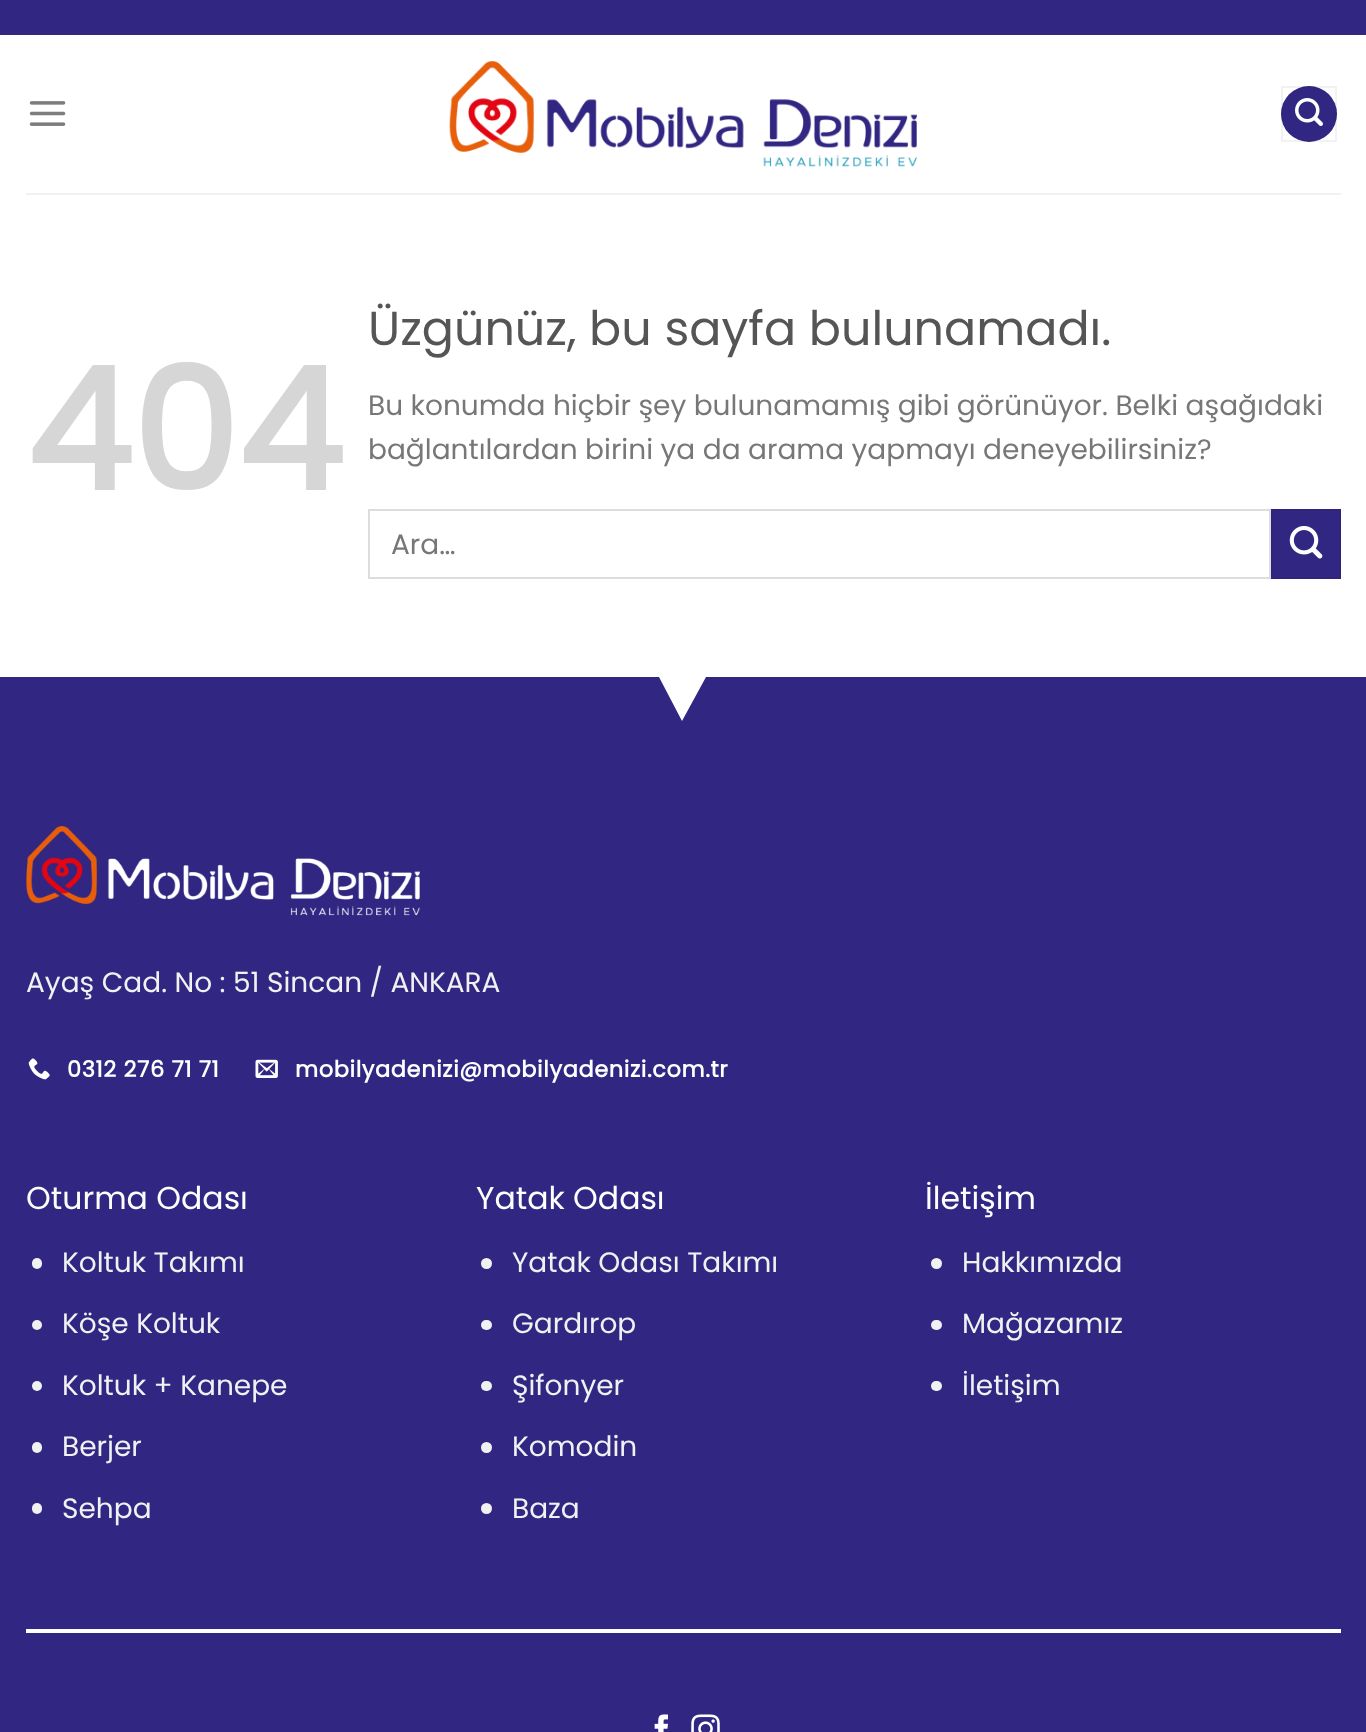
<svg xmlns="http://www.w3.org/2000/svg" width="1366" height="1732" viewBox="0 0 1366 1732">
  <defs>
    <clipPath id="clip1"><path d="M0 667h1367v262H0z"/></clipPath>
  </defs>
  <rect width="100%" height="100%" fill="#fff"/>
  <path d="M0 0h1366v35H0z" fill="#312783"/>
  <image x="29" y="101" width="37" height="25" href="img/1.png"/>
  <image x="449" y="61" width="468" height="106" href="img/2.png"/>
  <circle cx="1309" cy="114" r="28" fill="#312783"/>
  <path d="M1282 87h54v54H1282z" fill="none" stroke="#0000000d" stroke-width="2"/>
  <image x="1295" y="98" width="28" height="28" href="img/3.png"/>
  <path d="M26 193h1315v2H26z" fill="#f1f1f1"/>
  <path d="M369 510h901v68H369z" fill="none" stroke="#ddd" stroke-width="2"/>
  <path d="M1272 510h68v68H1272z" fill="#312783" stroke="#2f257c" stroke-width="2"/>
  <image x="1289" y="526" width="34" height="33" href="img/4.png"/>
  <path d="M0 677h1366v1055H0z" fill="#312783"/>
  <g clip-path="url(#clip1)">
    <path d="M-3 666H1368V677H706L682 721L659 677H-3Z" fill="#fff"/>
  </g>
  <image x="26" y="826" width="394" height="90" href="img/5.png"/>
  <image x="28" y="1058" width="22" height="22" href="img/6.png"/>
  <image x="255" y="1059" width="23" height="19" href="img/7.png"/>
  <rect x="32" y="1258" width="10" height="11" rx="5" fill="#f1f1f1"/>
  <circle cx="37" cy="1325" r="5" fill="#f1f1f1"/>
  <circle cx="37" cy="1386" r="5" fill="#f1f1f1"/>
  <rect x="32" y="1442" width="10" height="11" rx="5" fill="#f1f1f1"/>
  <rect x="32" y="1503" width="10" height="11" rx="5" fill="#f1f1f1"/>
  <circle cx="486.5" cy="1263.5" r="5.5" fill="#f1f1f1"/>
  <rect x="481" y="1320" width="11" height="10" rx="5" fill="#f1f1f1"/>
  <rect x="481" y="1381" width="11" height="10" rx="5" fill="#f1f1f1"/>
  <circle cx="486.5" cy="1447.5" r="5.5" fill="#f1f1f1"/>
  <circle cx="486.5" cy="1508.5" r="5.5" fill="#f1f1f1"/>
  <circle cx="936.5" cy="1263.5" r="5.5" fill="#f1f1f1"/>
  <rect x="931" y="1320" width="11" height="10" rx="5" fill="#f1f1f1"/>
  <rect x="931" y="1381" width="11" height="10" rx="5" fill="#f1f1f1"/>
  <path d="M26 1629h1315v4H26z" fill="#fff"/>
  <image x="654" y="1714" width="14" height="18" href="img/8.png"/>
  <image x="691" y="1714" width="29" height="18" href="img/9.png"/>
  <text x="26" y="490" font-family="Poppins" font-size="168" font-weight="bold" fill="#d6d6d6">404</text>
  <text x="368" y="345" font-family="Poppins" font-size="47.6" fill="#555">Üzgünüz, bu sayfa bulunamadı.</text>
  <g font-family="Poppins" font-size="28" fill="#777">
    <text x="368" y="415">Bu konumda hiçbir şey bulunamamış gibi görünüyor. Belki aşağıdaki</text>
    <text x="368" y="459">bağlantılardan birini ya da arama yapmayı deneyebilirsiniz?</text>
    <text x="391" y="554">Ara…</text>
  </g>
  <text x="26" y="992" font-family="Poppins" font-size="28" fill="#f1f1f1">Ayaş Cad. No : 51 Sincan / ANKARA</text>
  <g font-family="Poppins" font-size="22.4" font-weight="bold" letter-spacing="0.65" fill="#fff">
    <text x="67" y="1077">0312 276 71 71</text>
    <text x="295" y="1077">mobilyadenizi@mobilyadenizi.com.tr</text>
  </g>
  <text x="26" y="1209" font-family="Poppins" font-size="31.5" fill="#fff">Oturma Odası</text>
  <g font-family="Poppins" font-size="28" fill="#f1f1f1">
    <text x="62" y="1272">Koltuk Takımı</text>
    <text x="62" y="1333">Köşe Koltuk</text>
    <text x="62" y="1395">Koltuk + Kanepe</text>
    <text x="62" y="1456">Berjer</text>
    <text x="62" y="1518">Sehpa</text>
  </g>
  <text x="476" y="1209" font-family="Poppins" font-size="31.5" fill="#fff">Yatak Odası</text>
  <g font-family="Poppins" font-size="28" fill="#f1f1f1">
    <text x="512" y="1272">Yatak Odası Takımı</text>
    <text x="512" y="1333">Gardırop</text>
    <text x="512" y="1395">Şifonyer</text>
    <text x="512" y="1456">Komodin</text>
    <text x="512" y="1518">Baza</text>
  </g>
  <text x="925" y="1209" font-family="Poppins" font-size="31.5" fill="#fff">İletişim</text>
  <g font-family="Poppins" font-size="28" fill="#f1f1f1">
    <text x="962" y="1272">Hakkımızda</text>
    <text x="962" y="1333">Mağazamız</text>
    <text x="962" y="1395">İletişim</text>
  </g>
</svg>
